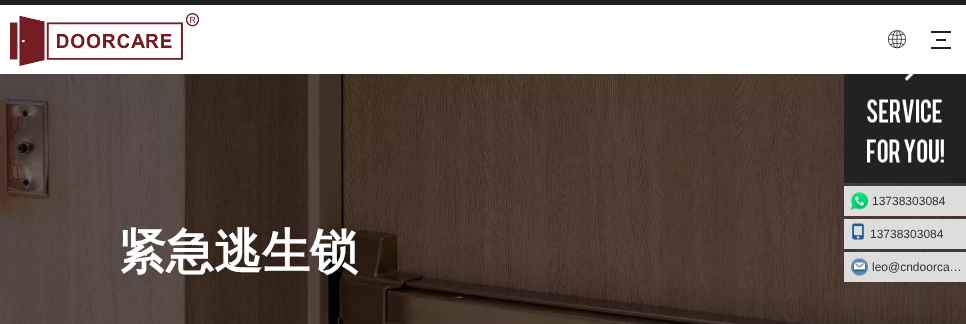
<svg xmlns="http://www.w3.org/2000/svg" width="966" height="324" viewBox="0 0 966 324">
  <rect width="100%" height="100%" fill="#fff"/>
  <path d="M0 0h966v5H0z" fill="#212123"/>
  <image x="10" y="13" width="189" height="53" href="img/1.png"/>
  <image x="888" y="30" width="18" height="19" href="img/2.png"/>
  <path d="M931 31h20v2H931z" fill="#212123"/>
  <path d="M936 39h10v2H936z" fill="#212123"/>
  <path d="M931 47h20v2H931z" fill="#212123"/>
  <image x="0" y="74" width="966" height="250" href="img/3.png"/>
  <path d="M844 74h122v109H844z" fill="#222"/>
  <image x="867" y="74" width="77" height="89" href="img/4.png"/>
  <path d="M844 186h122v30H844z" fill="#ddd"/>
  <image x="851" y="192" width="17" height="18" href="img/5.png"/>
  <path d="M844 219h122v30H844z" fill="#ddd"/>
  <image x="852" y="223" width="12" height="17" href="img/6.png"/>
  <path d="M844 252h122v30H844z" fill="#ddd"/>
  <image x="851" y="258" width="17" height="18" href="img/7.png"/>
  <text x="118" y="268" font-family="WenQuanYi Zen Hei" font-size="48" font-weight="bold" fill="#fff">紧急逃生锁</text>
  <g font-family="Liberation Sans" font-size="12" fill="#333">
    <text x="872" y="205">13738303084</text>
    <text x="870" y="238">13738303084</text>
    <text x="872" y="271">leo@cndoorca…</text>
  </g>
</svg>
